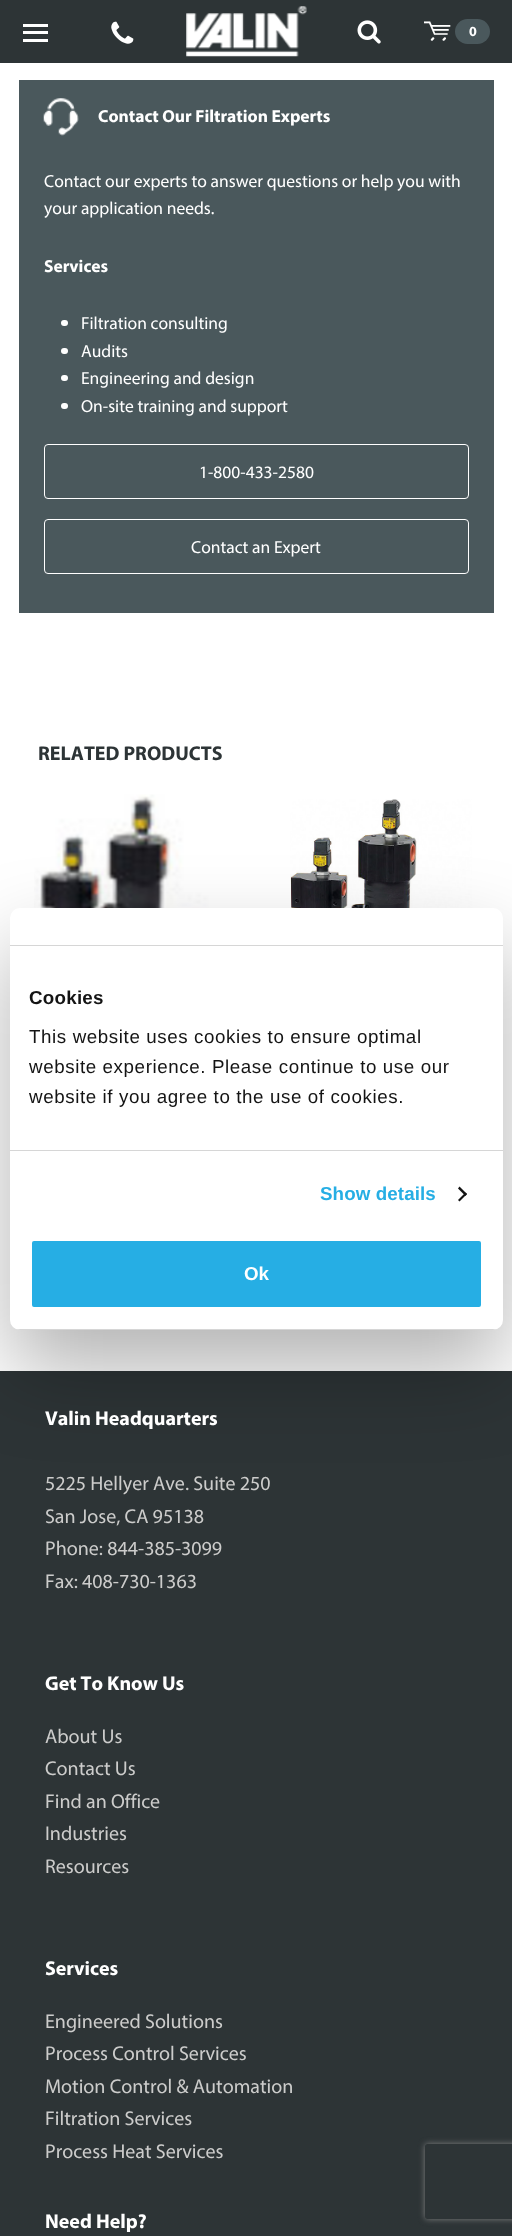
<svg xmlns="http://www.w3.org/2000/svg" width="512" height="2236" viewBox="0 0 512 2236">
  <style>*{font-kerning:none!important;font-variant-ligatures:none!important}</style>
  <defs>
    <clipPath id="clip1"><rect x="10" y="908" width="493" height="422" rx="10"/></clipPath>
    <clipPath id="clip2"><path d="M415 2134H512V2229H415ZM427.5 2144H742.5C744 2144 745 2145 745 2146.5V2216.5C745 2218 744 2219 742.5 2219H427.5C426 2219 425 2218 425 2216.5V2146.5C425 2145 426 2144 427.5 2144Z" clip-rule="evenodd"/></clipPath>
  </defs>
  <rect width="100%" height="100%" fill="#fff"/>
  <path d="M0 0h512v63H0z" fill="#2d3436"/>
  <path d="M23 31h25v3H23z" fill="#fff"/>
  <path d="M23 24h25v3H23z" fill="#fff"/>
  <path d="M23 39h25v3H23z" fill="#fff"/>
  <image x="111" y="21" width="23" height="23" href="img/1.png"/>
  <image x="186" y="6" width="121" height="51" href="img/2.png"/>
  <image x="357" y="20" width="24" height="24" href="img/3.png"/>
  <rect x="455" y="19" width="35" height="25" rx="12.5" fill="#4a585c"/>
  <path d="M19 80h475v533H19z" fill="#4a585c"/>
  <image x="43" y="98" width="36" height="38" href="img/4.png"/>
  <rect x="61" y="320" width="7" height="6" rx="3" fill="#fff"/>
  <rect x="61" y="348" width="7" height="6" rx="3" fill="#fff"/>
  <rect x="61" y="375" width="7" height="6" rx="3" fill="#fff"/>
  <rect x="61" y="403" width="7" height="6" rx="3" fill="#fff"/>
  <rect x="44.5" y="444.5" width="424" height="54" rx="3.5" fill="none" stroke="#fff"/>
  <rect x="44.5" y="519.5" width="424" height="54" rx="3.5" fill="none" stroke="#fff"/>
  <image x="34" y="794" width="198" height="114" href="img/5.png"/>
  <image x="290" y="799" width="182" height="109" href="img/6.png"/>
  <path d="M0 1371h512v865H0z" fill="#2d3436"/>
  <rect x="10" y="948" width="493" height="422" rx="10" fill="#0000004d" filter="blur(42.5px)"/>
  <rect x="10" y="908" width="493" height="422" rx="10" fill="#fff"/>
  <path d="M10 945h493v1H10z" fill="#d6d6d6"/>
  <path d="M10 1150h493v1H10z" fill="#d6d6d6"/>
  <path d="M459.5 1186.5L467 1194L465.5 1196L458 1188.5Z" fill="#141414"/>
  <path d="M465.5 1192.5L467 1194L459.5 1201.5L458 1200Z" fill="#141414"/>
  <g clip-path="url(#clip1)">
    <path d="M10 1329h493v1H10z" fill="#d6d6d6"/>
  </g>
  <rect x="30.5" y="1239.5" width="452" height="69" rx="3.5" fill="#26aee4" stroke="#fff" stroke-width="3"/>
  <g clip-path="url(#clip2)">
    <rect x="425" y="2144" width="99" height="75" rx="2.5" fill="#808080" filter="blur(3px)"/>
  </g>
  <text x="424" y="40" font-family="'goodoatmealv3'" font-size="20" fill="#fff">𑗸</text>
  <text x="469" y="36" font-family="Myriad" font-size="14" font-weight="bold" fill="#fff">0</text>
  <text x="98" y="122" font-family="Myriad" font-size="17.5" font-weight="bold" fill="#fff">Contact Our Filtration Experts</text>
  <g font-family="Myriad" font-size="17.5" fill="#fff">
    <text x="44" y="187">Contact our experts to answer questions or help you with</text>
    <text x="44" y="214">your application needs.</text>
  </g>
  <text x="44" y="272" font-family="Myriad" font-size="17.5" font-weight="bold" fill="#fff">Services</text>
  <g font-family="Myriad" font-size="17.5" fill="#fff">
    <text x="81" y="329">Filtration consulting</text>
    <text x="81" y="357">Audits</text>
    <text x="81" y="384">Engineering and design</text>
    <text x="81" y="412">On-site training and support</text>
    <text x="199" y="478">1-800-433-2580</text>
    <text x="191" y="553">Contact an Expert</text>
  </g>
  <text x="38" y="760" font-family="Myriad" font-size="20" font-weight="bold" fill="#2d3436">RELATED PRODUCTS</text>
  <text x="29" y="1004" font-family="Liberation Sans" font-size="18.75" font-weight="bold" letter-spacing="0.25" fill="#141414">Cookies</text>
  <g font-family="Liberation Sans" font-size="18.75" letter-spacing="0.6" fill="#141414">
    <text x="29" y="1043">This website uses cookies to ensure optimal</text>
    <text x="29" y="1073">website experience. Please continue to use our</text>
    <text x="29" y="1103">website if you agree to the use of cookies.</text>
  </g>
  <text x="320" y="1200" font-family="Liberation Sans" font-size="18.75" font-weight="bold" letter-spacing="0.1" fill="#26aee4">Show details</text>
  <text x="244" y="1280" font-family="Liberation Sans" font-size="18.75" font-weight="bold" fill="#fff">Ok</text>
  <text x="45" y="1425" font-family="Myriad" font-size="20" font-weight="bold" fill="#fff">Valin Headquarters</text>
  <g font-family="Myriad" font-size="20" fill="#cccccb">
    <text x="45" y="1490">5225 Hellyer Ave. Suite 250</text>
    <text x="45" y="1523">San Jose, CA 95138</text>
    <text x="45" y="1555">Phone: 844-385-3099</text>
    <text x="45" y="1588">Fax: 408-730-1363</text>
  </g>
  <text x="45" y="1690" font-family="Myriad" font-size="20" font-weight="bold" fill="#fff">Get To Know Us</text>
  <g font-family="Myriad" font-size="20" fill="#cccccb">
    <text x="45" y="1743">About Us</text>
    <text x="45" y="1775">Contact Us</text>
    <text x="45" y="1808">Find an Office</text>
    <text x="45" y="1840">Industries</text>
    <text x="45" y="1873">Resources</text>
  </g>
  <text x="45" y="1975" font-family="Myriad" font-size="20" font-weight="bold" fill="#fff">Services</text>
  <g font-family="Myriad" font-size="20" fill="#cccccb">
    <text x="45" y="2028">Engineered Solutions</text>
    <text x="45" y="2060">Process Control Services</text>
    <text x="45" y="2093">Motion Control &amp; Automation</text>
    <text x="45" y="2125">Filtration Services</text>
    <text x="45" y="2158">Process Heat Services</text>
  </g>
  <text x="45" y="2228" font-family="Myriad" font-size="20" font-weight="bold" fill="#fff">Need Help?</text>
</svg>
